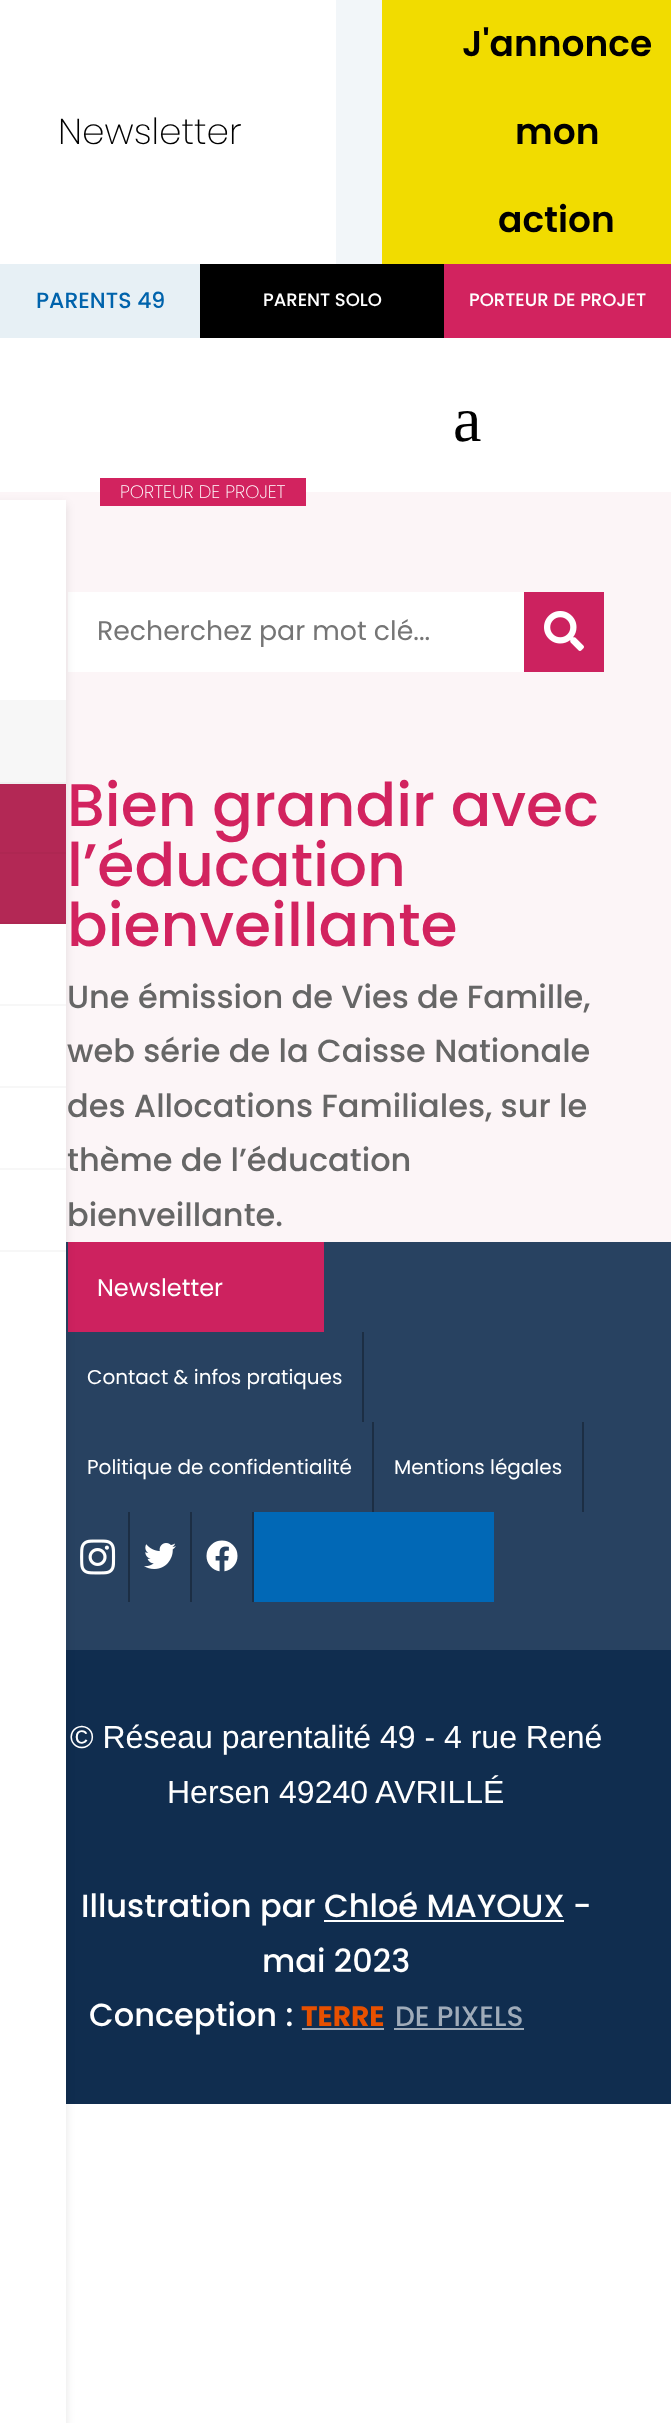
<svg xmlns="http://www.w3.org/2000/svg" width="671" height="2423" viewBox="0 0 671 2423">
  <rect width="100%" height="100%" fill="#fff"/>
  <path d="M336 0h46v264H336z" fill="#f2f6f9"/>
  <path d="M382 0h289v264H382z" fill="#f1dc00"/>
  <path d="M0 264h200v74H0z" fill="#e7f0f5"/>
  <path d="M200 264h244v74H200z" fill="#000"/>
  <path d="M444 264h227v74H444z" fill="#d2235f"/>
  <path d="M0 492h671v154H0z" fill="#fcf5f7"/>
  <path d="M66 646h605v596H66z" fill="#fcf5f7"/>
  <path d="M68 592h456v80H68z" fill="#fff"/>
  <path d="M66 1650h605v454H66z" fill="#102d4f"/>
  <path d="M66 1242h605v408H66z" fill="#284261"/>
  <path d="M68 1242h256v90H68z" fill="#cd225f"/>
  <image x="80" y="1539" width="36" height="36" href="img/2.png"/>
  <path d="M-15 504h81v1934H-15z" fill="#0000001a" filter="blur(5px)"/>
  <path d="M0 500h66v1923H0z" fill="#fff"/>
  <path d="M0 700h66v82H0z" fill="#f7f7f7"/>
  <path d="M0 782h66v2H0z" fill="#f0f0f0"/>
  <path d="M0 784h66v68H0z" fill="#b32855"/>
  <path d="M0 852h66v2H0z" fill="#ae2752"/>
  <path d="M0 854h66v68H0z" fill="#b32855"/>
  <path d="M0 922h66v2H0z" fill="#ae2752"/>
  <path d="M0 1004h66v2H0z" fill="#f7f7f7"/>
  <path d="M0 1086h66v2H0z" fill="#f7f7f7"/>
  <path d="M0 1168h66v2H0z" fill="#f7f7f7"/>
  <path d="M0 1250h66v2H0z" fill="#f7f7f7"/>
  <path d="M100 478h206v28H100z" fill="#d2235f"/>
  <path d="M524 592h80v80H524z" fill="#cc225f"/>
  <image x="544" y="611" width="40" height="40" href="img/1.png"/>
  <path d="M362 1332h2v90H362z" fill="#1c2e44"/>
  <path d="M372 1422h2v90H372z" fill="#1c2e44"/>
  <path d="M582 1422h2v90H582z" fill="#1c2e44"/>
  <path d="M128 1512h2v90H128z" fill="#1c2e44"/>
  <path d="M190 1512h2v90H190z" fill="#1c2e44"/>
  <image x="144" y="1543" width="32" height="26" href="img/3.png"/>
  <path d="M252 1512h2v90H252z" fill="#1c2e44"/>
  <image x="206" y="1540" width="32" height="32" href="img/4.png"/>
  <path d="M254 1512h240v90H254z" fill="#0168b6"/>
  <path d="M324 1920h240v2H324z" fill="#fff"/>
  <path d="M302 2028h82v2H302z" fill="#9fabb9"/>
  <path d="M394 2028h130v2H394z" fill="#9fabb9"/>
  <text x="58" y="144" font-family="Poppins" font-size="36" font-weight="200" fill="#000">Newsletter</text>
  <g font-family="Poppins" font-size="36" font-weight="600" fill="#000">
    <text x="462" y="56">J'annonce</text>
    <text x="515" y="144">mon</text>
    <text x="498" y="232">action</text>
  </g>
  <text x="36" y="308" font-family="Poppins" font-size="22" font-weight="500" fill="#0063ac">PARENTS 49</text>
  <g font-family="Poppins" font-size="18" font-weight="500" fill="#fff">
    <text x="263" y="306">PARENT SOLO</text>
    <text x="469" y="306">PORTEUR DE PROJET</text>
  </g>
  <text x="453" y="441" font-family="Liberation Serif" font-size="64" fill="#000">a</text>
  <text x="120" y="498" font-family="Poppins" font-size="18" font-weight="200" fill="#fff">PORTEUR DE PROJET</text>
  <text x="97" y="640" font-family="Poppins" font-size="26.75" fill="#757575">Recherchez par mot clé...</text>
  <g font-family="Poppins" font-size="60" font-weight="500" fill="#d2235f">
    <text x="67" y="826">Bien grandir avec</text>
    <text x="67" y="886">l’éducation</text>
    <text x="67" y="946">bienveillante</text>
  </g>
  <g font-family="Poppins" font-size="32" font-weight="500" fill="#666">
    <text x="67" y="1008">Une émission de Vies de Famille,</text>
    <text x="67" y="1062">web série de la Caisse Nationale</text>
    <text x="67" y="1117">des Allocations Familiales, sur le</text>
    <text x="67" y="1171">thème de l’éducation</text>
    <text x="67" y="1226">bienveillante.</text>
  </g>
  <text x="97" y="1296" font-family="Poppins" font-size="24" fill="#fff">Newsletter</text>
  <g font-family="Poppins" font-size="20" fill="#fff">
    <text x="87" y="1384">Contact &amp; infos pratiques</text>
    <text x="87" y="1474">Politique de confidentialité</text>
    <text x="394" y="1474">Mentions légales</text>
  </g>
  <g font-family="Liberation Sans" font-size="32" fill="#fff">
    <text x="70" y="1748">© Réseau parentalité 49 - 4 rue René</text>
    <text x="167" y="1803">Hersen 49240 AVRILLÉ</text>
  </g>
  <g font-family="Poppins" font-size="32" font-weight="500" fill="#fff">
    <text x="81" y="1917">Illustration par Chloé MAYOUX -</text>
    <text x="262" y="1972">mai 2023</text>
    <text x="89" y="2026">Conception :</text>
  </g>
  <text x="301" y="2026" font-family="Poppins" font-size="28" font-weight="bold" fill="#e75000">TERRE</text>
  <text x="395" y="2026" font-family="Poppins" font-size="28" font-weight="500" fill="#9fabb9">DE PIXELS</text>
</svg>
